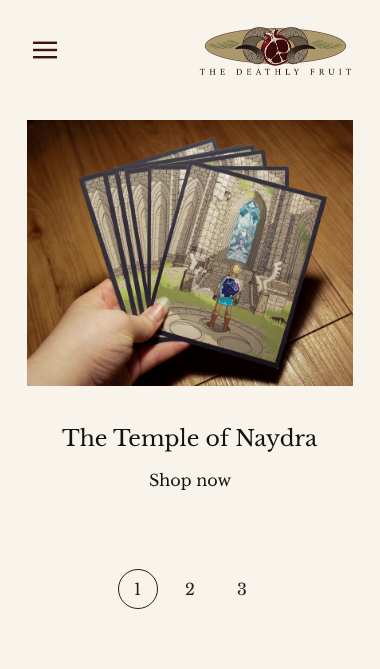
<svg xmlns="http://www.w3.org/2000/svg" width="380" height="669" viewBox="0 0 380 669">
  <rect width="100%" height="100%" fill="#f8f4ec"/>
  <image x="33" y="41" width="24" height="18" href="img/1.png"/>
  <image x="199" y="27" width="153" height="48" href="img/2.png"/>
  <image x="27" y="120" width="326" height="266" href="img/3.png"/>
  <circle cx="138" cy="589" r="19.5" fill="none" stroke="#201d1d"/>
  <text x="62" y="446" font-family="Libre Baskerville" font-size="22" fill="#121212">The Temple of Naydra</text>
  <text x="149" y="486" font-family="Libre Baskerville" font-size="16" fill="#121212">Shop now</text>
  <g font-family="Libre Baskerville" font-size="16" fill="#201d1d">
    <text x="134" y="595">1</text>
    <text x="185" y="595">2</text>
    <text x="237" y="595">3</text>
  </g>
</svg>
